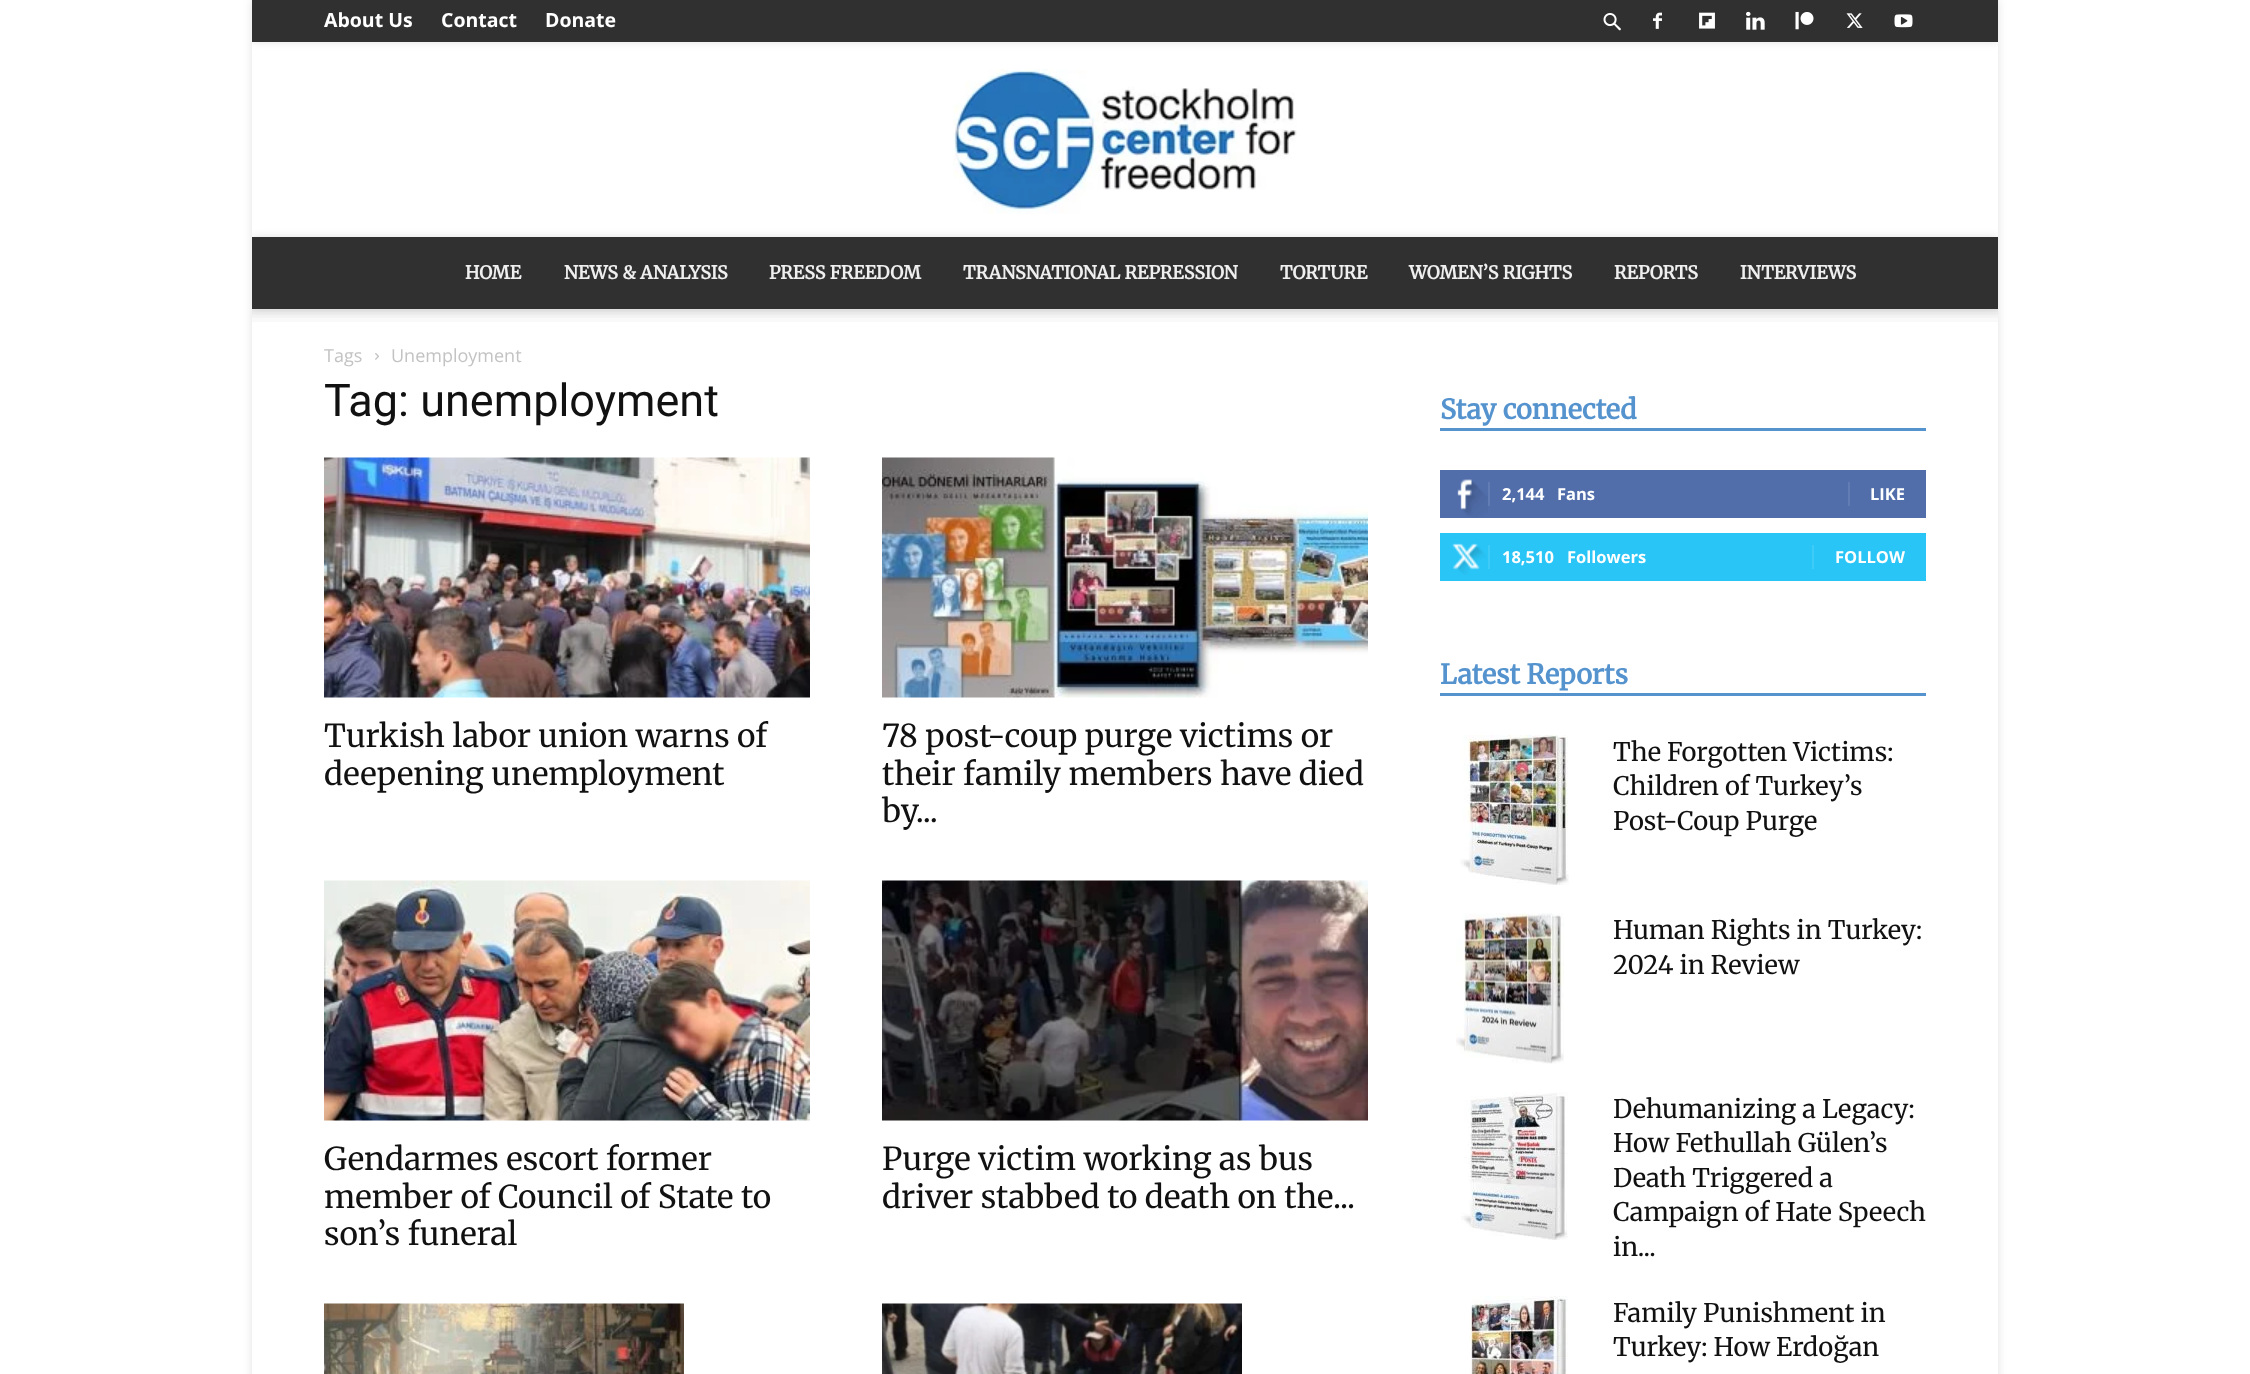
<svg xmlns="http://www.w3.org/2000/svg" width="2250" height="1374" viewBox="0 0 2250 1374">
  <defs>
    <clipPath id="clip1"><path d="M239 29H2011V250H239ZM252 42H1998V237H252Z" clip-rule="evenodd"/></clipPath>
    <clipPath id="clip2"><path d="M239 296H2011V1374H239ZM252 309H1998V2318H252Z" clip-rule="evenodd"/></clipPath>
  </defs>
  <rect width="100%" height="100%" fill="#fff"/>
  <path d="M252 0h1746v42H252z" fill="#0000001f" filter="blur(4px)"/>
  <g clip-path="url(#clip1)">
    <path d="M252 42h1746v195H252z" fill="#0000001f" filter="blur(4px)"/>
  </g>
  <path d="M252 0h1746v42H252z" fill="#303030"/>
  <image x="1603" y="13" width="18" height="18" href="img/1.png"/>
  <image x="1653" y="12" width="9" height="17" href="img/2.png"/>
  <image x="1699" y="12" width="16" height="17" href="img/3.png"/>
  <image x="1746" y="11" width="19" height="19" href="img/4.png"/>
  <image x="1795" y="11" width="19" height="19" href="img/5.png"/>
  <image x="1846" y="13" width="17" height="15" href="img/6.png"/>
  <image x="1894" y="14" width="19" height="14" href="img/7.png"/>
  <image x="953" y="69" width="344" height="145" href="img/8.png"/>
  <path d="M252 237h1746v72H252z" fill="#0000001f" filter="blur(4px)"/>
  <g clip-path="url(#clip2)">
    <path d="M252 309h1746v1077H252z" fill="#0000001f" filter="blur(4px)"/>
  </g>
  <path d="M252 237h1746v72H252z" fill="#303030"/>
  <image x="252" y="309" width="1746" height="13" href="img/9.png"/>
  <image x="375" y="353" width="4" height="7" href="img/10.png"/>
  <image x="324" y="457" width="486" height="241" href="img/11.png"/>
  <image x="882" y="457" width="486" height="241" href="img/12.png"/>
  <image x="324" y="880" width="486" height="241" href="img/13.png"/>
  <image x="882" y="880" width="486" height="241" href="img/14.png"/>
  <image x="324" y="1303" width="360" height="71" href="img/15.png"/>
  <image x="882" y="1303" width="360" height="71" href="img/16.png"/>
  <path d="M1440 428h486v3H1440z" fill="#5593ce"/>
  <path d="M1440 470h486v48H1440z" fill="#516eab"/>
  <image x="1457" y="479" width="31" height="38" href="img/17.png"/>
  <path d="M1488 482h2v24H1488z" fill="#627db3"/>
  <path d="M1848 482h2v24H1848z" fill="#627db3"/>
  <path d="M1440 533h486v48H1440z" fill="#29c5f6"/>
  <image x="1452" y="543" width="34" height="32" href="img/18.png"/>
  <path d="M1488 545h2v24H1488z" fill="#3ecbf7"/>
  <path d="M1812 545h2v24H1812z" fill="#3ecbf7"/>
  <path d="M1440 693h486v3H1440z" fill="#5593ce"/>
  <image x="1460" y="735" width="109" height="150" href="img/19.png"/>
  <image x="1456" y="913" width="108" height="151" href="img/20.png"/>
  <image x="1461" y="1092" width="107" height="148" href="img/21.png"/>
  <image x="1469" y="1296" width="99" height="78" href="img/22.png"/>
  <g font-family="Open Sans" font-size="19.5" font-weight="bold" fill="#fff">
    <text x="324" y="27">About Us</text>
    <text x="441" y="27">Contact</text>
    <text x="545" y="27">Donate</text>
  </g>
  <g font-family="Merriweather" font-size="18" font-weight="bold" fill="#efefef">
    <text x="465" y="279">HOME</text>
    <text x="564" y="279">NEWS &amp; ANALYSIS</text>
    <text x="769" y="279">PRESS FREEDOM</text>
    <text x="963" y="279">TRANSNATIONAL REPRESSION</text>
    <text x="1280" y="279">TORTURE</text>
    <text x="1409" y="279">WOMEN’S RIGHTS</text>
    <text x="1614" y="279">REPORTS</text>
    <text x="1740" y="279">INTERVIEWS</text>
  </g>
  <g font-family="Open Sans" font-size="18" fill="#c3c3c3">
    <text x="324" y="362">Tags</text>
    <text x="391" y="362">Unemployment</text>
  </g>
  <text x="324" y="416" font-family="Roboto" font-size="45" fill="#111">Tag: unemployment</text>
  <g font-family="Merriweather" font-size="31.5" font-weight="300" fill="#111">
    <text x="324" y="747">Turkish labor union warns of</text>
    <text x="324" y="785">deepening unemployment</text>
    <text x="882" y="747">78 post-coup purge victims or</text>
    <text x="882" y="785">their family members have died</text>
    <text x="882" y="822">by...</text>
    <text x="324" y="1170">Gendarmes escort former</text>
    <text x="324" y="1208">member of Council of State to</text>
    <text x="324" y="1245">son’s funeral</text>
    <text x="882" y="1170">Purge victim working as bus</text>
    <text x="882" y="1208">driver stabbed to death on the...</text>
  </g>
  <text x="1440" y="419" font-family="Merriweather" font-size="27" font-weight="bold" fill="#5593ce">Stay connected</text>
  <g font-family="Open Sans" font-size="16.5" font-weight="bold" fill="#fff">
    <text x="1502" y="500">2,144</text>
    <text x="1557" y="500">Fans</text>
    <text x="1870" y="500">LIKE</text>
    <text x="1502" y="563">18,510</text>
    <text x="1567" y="563">Followers</text>
    <text x="1835" y="563">FOLLOW</text>
  </g>
  <text x="1440" y="684" font-family="Merriweather" font-size="27" font-weight="bold" fill="#5593ce">Latest Reports</text>
  <g font-family="Merriweather" font-size="25.5" font-weight="300" fill="#111">
    <text x="1613" y="761">The Forgotten Victims:</text>
    <text x="1613" y="795">Children of Turkey’s</text>
    <text x="1613" y="830">Post-Coup Purge</text>
    <text x="1613" y="939">Human Rights in Turkey:</text>
    <text x="1613" y="974">2024 in Review</text>
    <text x="1613" y="1118">Dehumanizing a Legacy:</text>
    <text x="1613" y="1152">How Fethullah Gülen’s</text>
    <text x="1613" y="1187">Death Triggered a</text>
    <text x="1613" y="1221">Campaign of Hate Speech</text>
    <text x="1613" y="1256">in...</text>
    <text x="1613" y="1322">Family Punishment in</text>
    <text x="1613" y="1356">Turkey: How Erdoğan</text>
  </g>
</svg>
